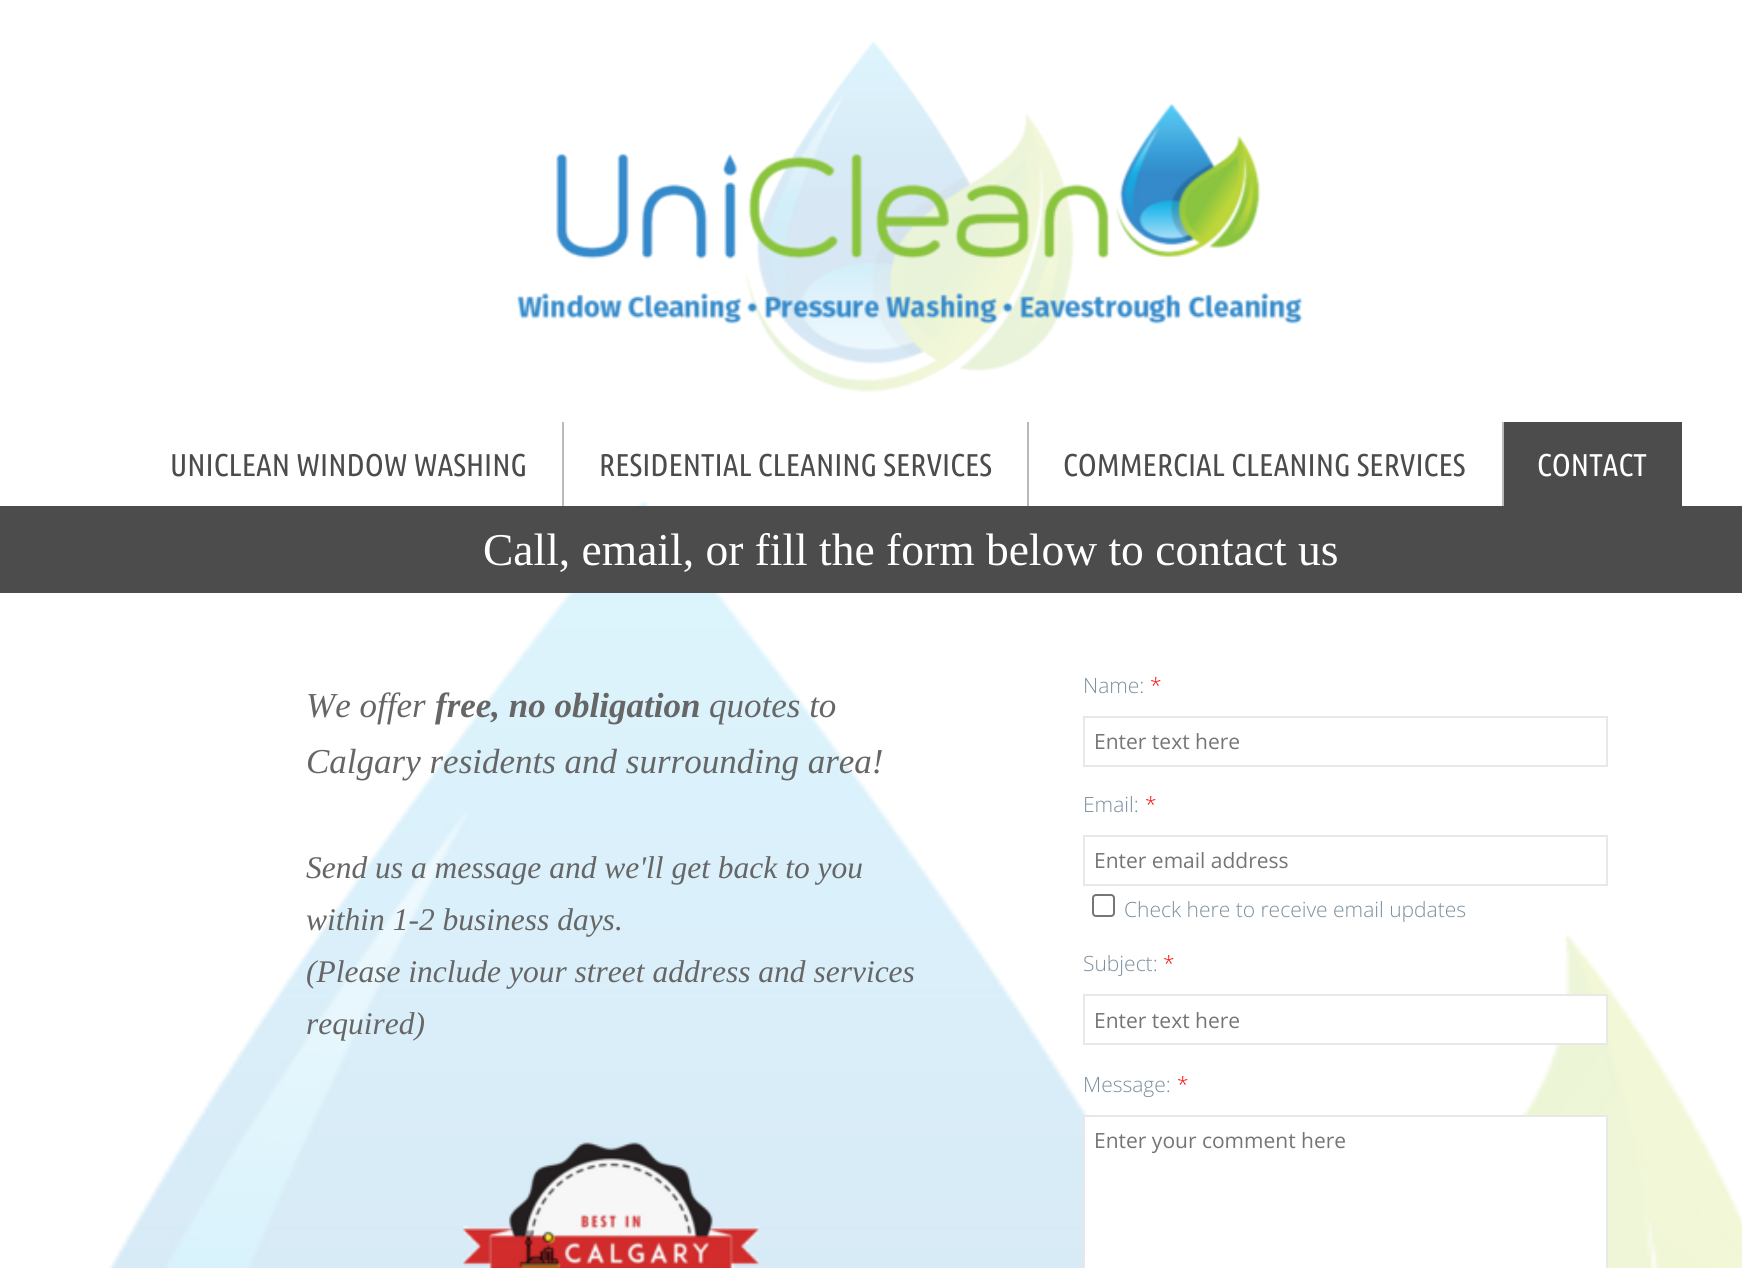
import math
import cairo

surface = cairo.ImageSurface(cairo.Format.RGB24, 1742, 1268)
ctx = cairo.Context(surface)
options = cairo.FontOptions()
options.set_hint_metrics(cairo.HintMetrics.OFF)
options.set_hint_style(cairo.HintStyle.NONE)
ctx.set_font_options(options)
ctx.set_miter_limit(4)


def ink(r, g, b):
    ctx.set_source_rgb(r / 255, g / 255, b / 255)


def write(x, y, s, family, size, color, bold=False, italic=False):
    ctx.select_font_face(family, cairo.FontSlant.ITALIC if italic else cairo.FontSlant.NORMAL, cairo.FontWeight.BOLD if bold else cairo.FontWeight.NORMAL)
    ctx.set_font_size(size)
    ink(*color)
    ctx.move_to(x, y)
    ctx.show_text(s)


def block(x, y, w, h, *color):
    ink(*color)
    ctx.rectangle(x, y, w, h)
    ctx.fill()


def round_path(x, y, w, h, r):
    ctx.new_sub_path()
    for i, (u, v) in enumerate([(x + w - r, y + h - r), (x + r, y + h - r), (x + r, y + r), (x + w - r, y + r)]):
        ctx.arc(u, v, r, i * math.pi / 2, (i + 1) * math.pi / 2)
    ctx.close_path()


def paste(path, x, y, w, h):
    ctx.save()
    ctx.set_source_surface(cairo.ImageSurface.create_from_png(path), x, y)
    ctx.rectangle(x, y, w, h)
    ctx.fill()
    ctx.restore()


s1 = dict(family="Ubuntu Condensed", size=31.5, color=(76, 76, 76))
s2 = dict(family="Ubuntu Condensed", size=31.5, color=(255, 255, 255))
s3 = dict(family="Liberation Serif", size=45.5, color=(255, 255, 255))
s4 = dict(family="Liberation Serif", size=35, color=(102, 102, 102), italic=True)
s5 = dict(family="Liberation Serif", size=35, color=(102, 102, 102), bold=True, italic=True)
s6 = dict(family="Liberation Serif", size=31.5, color=(102, 102, 102), italic=True)
s7 = dict(family="Open Sans Light", size=21, color=(123, 143, 158))
s8 = dict(family="Open Sans Light", size=21, color=(255, 0, 0))
s9 = dict(family="Open Sans", size=21, color=(117, 117, 117))

ink(255, 255, 255)
ctx.paint()
paste("pic1.png", 516, 41, 787, 351)
write(170, 476, "UNICLEAN WINDOW WASHING", **s1)
paste("pic2.png", 109, 501, 1633, 767)
block(562, 422, 2, 84, 185, 186, 190)
write(599, 476, "RESIDENTIAL CLEANING SERVICES", **s1)
block(1027, 422, 2, 84, 185, 186, 190)
write(1063, 476, "COMMERCIAL CLEANING SERVICES", **s1)
block(1504, 422, 178, 84, 76, 76, 76)
block(1502, 422, 2, 84, 185, 186, 190)
write(1537, 476, "CONTACT", **s2)
block(0, 506, 1742, 87, 76, 76, 76)
write(483, 565, "Call, email, or fill the form below to contact us", **s3)
write(306, 717, "We offer", **s4)
write(435, 717, "free, no obligation", **s5)
write(709, 717, "quotes to", **s4)
write(306, 773, "Calgary residents and surrounding area!", **s4)
write(306, 878, "Send us a message and we'll get back to you", **s6)
write(306, 930, "within 1-2 business days.", **s6)
write(306, 982, "(Please include your street address and services", **s6)
write(306, 1034, "required)", **s6)
write(1083, 693, "Name:", **s7)
write(1150, 693, "*", **s8)
ctx.rectangle(1084, 717, 523, 49)
ink(232, 232, 232)
ctx.stroke()
write(1094, 749, "Enter text here", **s9)
write(1083, 812, "Email:", **s7)
write(1145, 812, "*", **s8)
ctx.rectangle(1084, 836, 523, 49)
ink(232, 232, 232)
ctx.stroke()
write(1094, 868, "Enter email address", **s9)
round_path(1093, 895, 21, 21, 3)
ink(118, 118, 118)
ctx.stroke()
write(1124, 917, "Check here to receive email updates", **s7)
write(1083, 971, "Subject:", **s7)
write(1163, 971, "*", **s8)
block(1555, 996, 51, 47, 255, 255, 255)
ctx.rectangle(1084, 995, 523, 49)
ink(232, 232, 232)
ctx.stroke()
write(1094, 1028, "Enter text here", **s9)
write(1083, 1092, "Message:", **s7)
write(1177, 1092, "*", **s8)
ink(255, 255, 255)
ctx.rectangle(1084, 1116, 523, 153)
ctx.fill_preserve()
ink(232, 232, 232)
ctx.stroke()
write(1094, 1148, "Enter your comment here", **s9)
paste("pic3.png", 462, 1142, 298, 126)
surface.write_to_png("screenshot.png")
